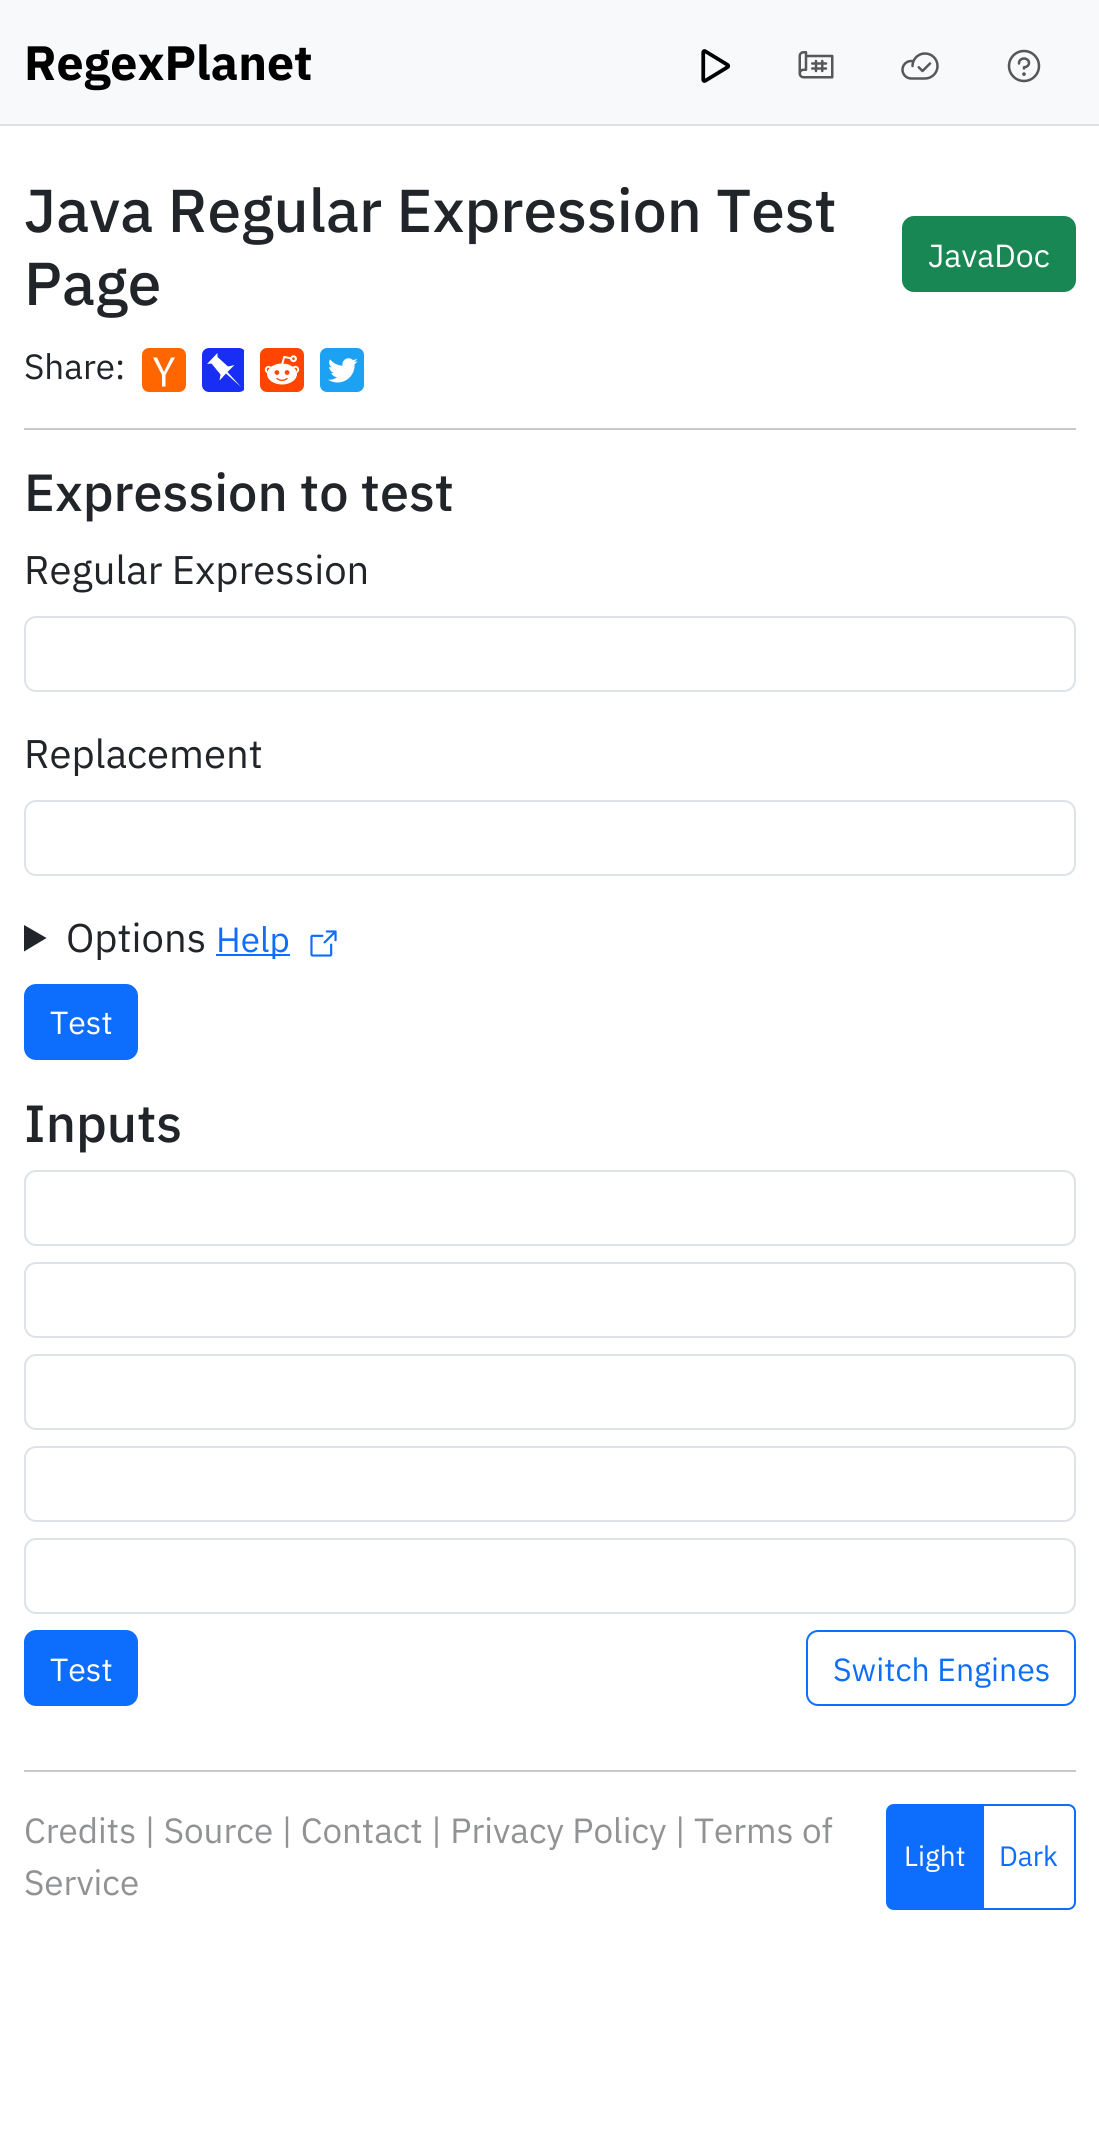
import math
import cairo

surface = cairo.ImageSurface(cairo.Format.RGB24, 1099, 2151)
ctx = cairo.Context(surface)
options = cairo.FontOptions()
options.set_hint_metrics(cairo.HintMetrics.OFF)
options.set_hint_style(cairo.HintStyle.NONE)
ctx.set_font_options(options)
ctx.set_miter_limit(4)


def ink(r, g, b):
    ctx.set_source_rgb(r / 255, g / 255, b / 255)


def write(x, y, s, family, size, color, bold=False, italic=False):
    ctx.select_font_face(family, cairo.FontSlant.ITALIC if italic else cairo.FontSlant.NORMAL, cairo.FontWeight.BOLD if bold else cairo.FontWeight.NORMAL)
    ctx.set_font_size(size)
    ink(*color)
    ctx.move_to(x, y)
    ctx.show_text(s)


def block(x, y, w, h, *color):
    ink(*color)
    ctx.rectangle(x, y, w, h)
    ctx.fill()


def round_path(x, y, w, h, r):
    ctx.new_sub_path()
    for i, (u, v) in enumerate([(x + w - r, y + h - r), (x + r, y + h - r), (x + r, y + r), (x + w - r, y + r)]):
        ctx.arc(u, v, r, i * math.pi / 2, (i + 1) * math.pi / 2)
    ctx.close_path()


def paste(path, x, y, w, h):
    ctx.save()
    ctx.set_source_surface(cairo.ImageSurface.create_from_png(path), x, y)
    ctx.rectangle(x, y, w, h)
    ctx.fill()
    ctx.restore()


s1 = dict(family="IBM Plex Sans", size=48.25, color=(0, 0, 0), bold=True)
s2 = dict(family="IBM Plex Sans Medium", size=60.5, color=(33, 37, 41))
s3 = dict(family="IBM Plex Sans", size=32, color=(255, 255, 255))
s4 = dict(family="IBM Plex Sans", size=35, color=(33, 37, 41))
s5 = dict(family="IBM Plex Sans Medium", size=52.25, color=(33, 37, 41))
s6 = dict(family="IBM Plex Sans", size=40, color=(33, 37, 41))
s7 = dict(family="IBM Plex Sans", size=35, color=(13, 110, 253))
s8 = dict(family="IBM Plex Sans", size=32, color=(13, 110, 253))
s9 = dict(family="IBM Plex Sans", size=35, color=(144, 146, 148))
s10 = dict(family="IBM Plex Sans", size=28, color=(255, 255, 255))
s11 = dict(family="IBM Plex Sans", size=28, color=(13, 110, 253))

ink(255, 255, 255)
ctx.paint()
block(0, 0, 1099, 124, 248, 249, 250)
block(0, 124, 1099, 2, 222, 226, 230)
write(24, 80, "RegexPlanet", **s1)
paste("pic1.png", 701, 49, 30, 34)
paste("pic2.png", 798, 51, 36, 28)
paste("pic3.png", 901, 52, 38, 28)
paste("pic4.png", 1007, 49, 34, 34)
write(24, 232, "Java Regular Expression Test", **s2)
write(24, 305, "Page", **s2)
ink(25, 135, 84)
round_path(903, 217, 172, 74, 11)
ctx.fill_preserve()
ctx.stroke()
write(928, 267, "JavaDoc", **s3)
write(24, 379, "Share:", **s4)
ink(255, 102, 0)
round_path(142, 348, 44, 44, 7)
ctx.fill()
ink(255, 255, 255)
ctx.new_path()
ctx.move_to(153, 357.5)
ctx.line_to(157, 357.5)
ctx.line_to(164, 372)
ctx.line_to(171, 357.5)
ctx.line_to(175, 357.5)
ctx.line_to(165.5, 375)
ctx.line_to(165.5, 386.5)
ctx.line_to(162, 386.5)
ctx.line_to(162, 375)
ctx.close_path()
ctx.fill()
ctx.save()
ctx.rectangle(202, 348, 42, 44)
ctx.clip()
ink(24, 46, 245)
round_path(202, 348, 44, 44, 7)
ctx.fill()
ctx.restore()
ctx.new_path()
ctx.move_to(217.5, 353)
ctx.line_to(207, 364)
ctx.line_to(211.5, 363.5)
ctx.line_to(220.5, 374.5)
ctx.line_to(219.5, 380.5)
ctx.line_to(226, 373.5)
ctx.line_to(241, 387)
ctx.line_to(227.5, 372)
ctx.line_to(234.5, 365)
ctx.line_to(228, 366.5)
ctx.line_to(217.5, 357)
ctx.fill()
paste("pic5.png", 260, 348, 44, 44)
paste("pic6.png", 320, 348, 44, 44)
block(24, 428, 1052, 2, 200, 201, 202)
write(24, 511, "Expression to test", **s5)
write(24, 584, "Regular Expression", **s6)
round_path(25, 617, 1050, 74, 11)
ink(222, 226, 230)
ctx.stroke()
write(24, 768, "Replacement", **s6)
round_path(25, 801, 1050, 74, 11)
ink(222, 226, 230)
ctx.stroke()
ink(33, 37, 41)
ctx.new_path()
ctx.move_to(24, 925)
ctx.line_to(46.5, 938)
ctx.line_to(24, 951.5)
ctx.close_path()
ctx.fill()
write(66, 952, "Options", **s6)
block(216, 954, 74, 2, 13, 110, 253)
write(216, 952, "Help", **s7)
paste("pic7.png", 310, 930, 27, 27)
round_path(25, 985, 112, 74, 11)
ctx.fill_preserve()
ctx.stroke()
write(50, 1034, "Test", **s3)
write(24, 1142, "Inputs", **s5)
round_path(25, 1171, 1050, 74, 11)
ink(222, 226, 230)
ctx.stroke()
round_path(25, 1263, 1050, 74, 11)
ctx.stroke()
round_path(25, 1355, 1050, 74, 11)
ctx.stroke()
round_path(25, 1447, 1050, 74, 11)
ctx.stroke()
round_path(25, 1539, 1050, 74, 11)
ctx.stroke()
ink(13, 110, 253)
round_path(25, 1631, 112, 74, 11)
ctx.fill_preserve()
ctx.stroke()
write(50, 1681, "Test", **s3)
round_path(807, 1631, 268, 74, 11)
ink(13, 110, 253)
ctx.stroke()
write(833, 1681, "Switch Engines", **s8)
block(24, 1770, 1052, 2, 200, 201, 202)
write(24, 1843, "Credits | Source | Contact | Privacy Policy | Terms of", **s9)
write(24, 1895, "Service", **s9)
ink(13, 110, 253)
ctx.new_path()
ctx.move_to(894, 1805)
ctx.line_to(983, 1805)
ctx.line_to(983, 1909)
ctx.line_to(894, 1909)
ctx.curve_to(890, 1909, 887, 1906, 887, 1902)
ctx.line_to(887, 1812)
ctx.curve_to(887, 1808, 890, 1805, 894, 1805)
ctx.close_path()
ctx.fill_preserve()
ctx.stroke()
write(904, 1866, "Light", **s10)
ctx.new_path()
ctx.move_to(983, 1805)
ctx.line_to(1068, 1805)
ctx.curve_to(1072, 1805, 1075, 1808, 1075, 1812)
ctx.line_to(1075, 1902)
ctx.curve_to(1075, 1906, 1072, 1909, 1068, 1909)
ctx.line_to(983, 1909)
ctx.close_path()
ink(13, 110, 253)
ctx.stroke()
write(999, 1866, "Dark", **s11)
surface.write_to_png("screenshot.png")
